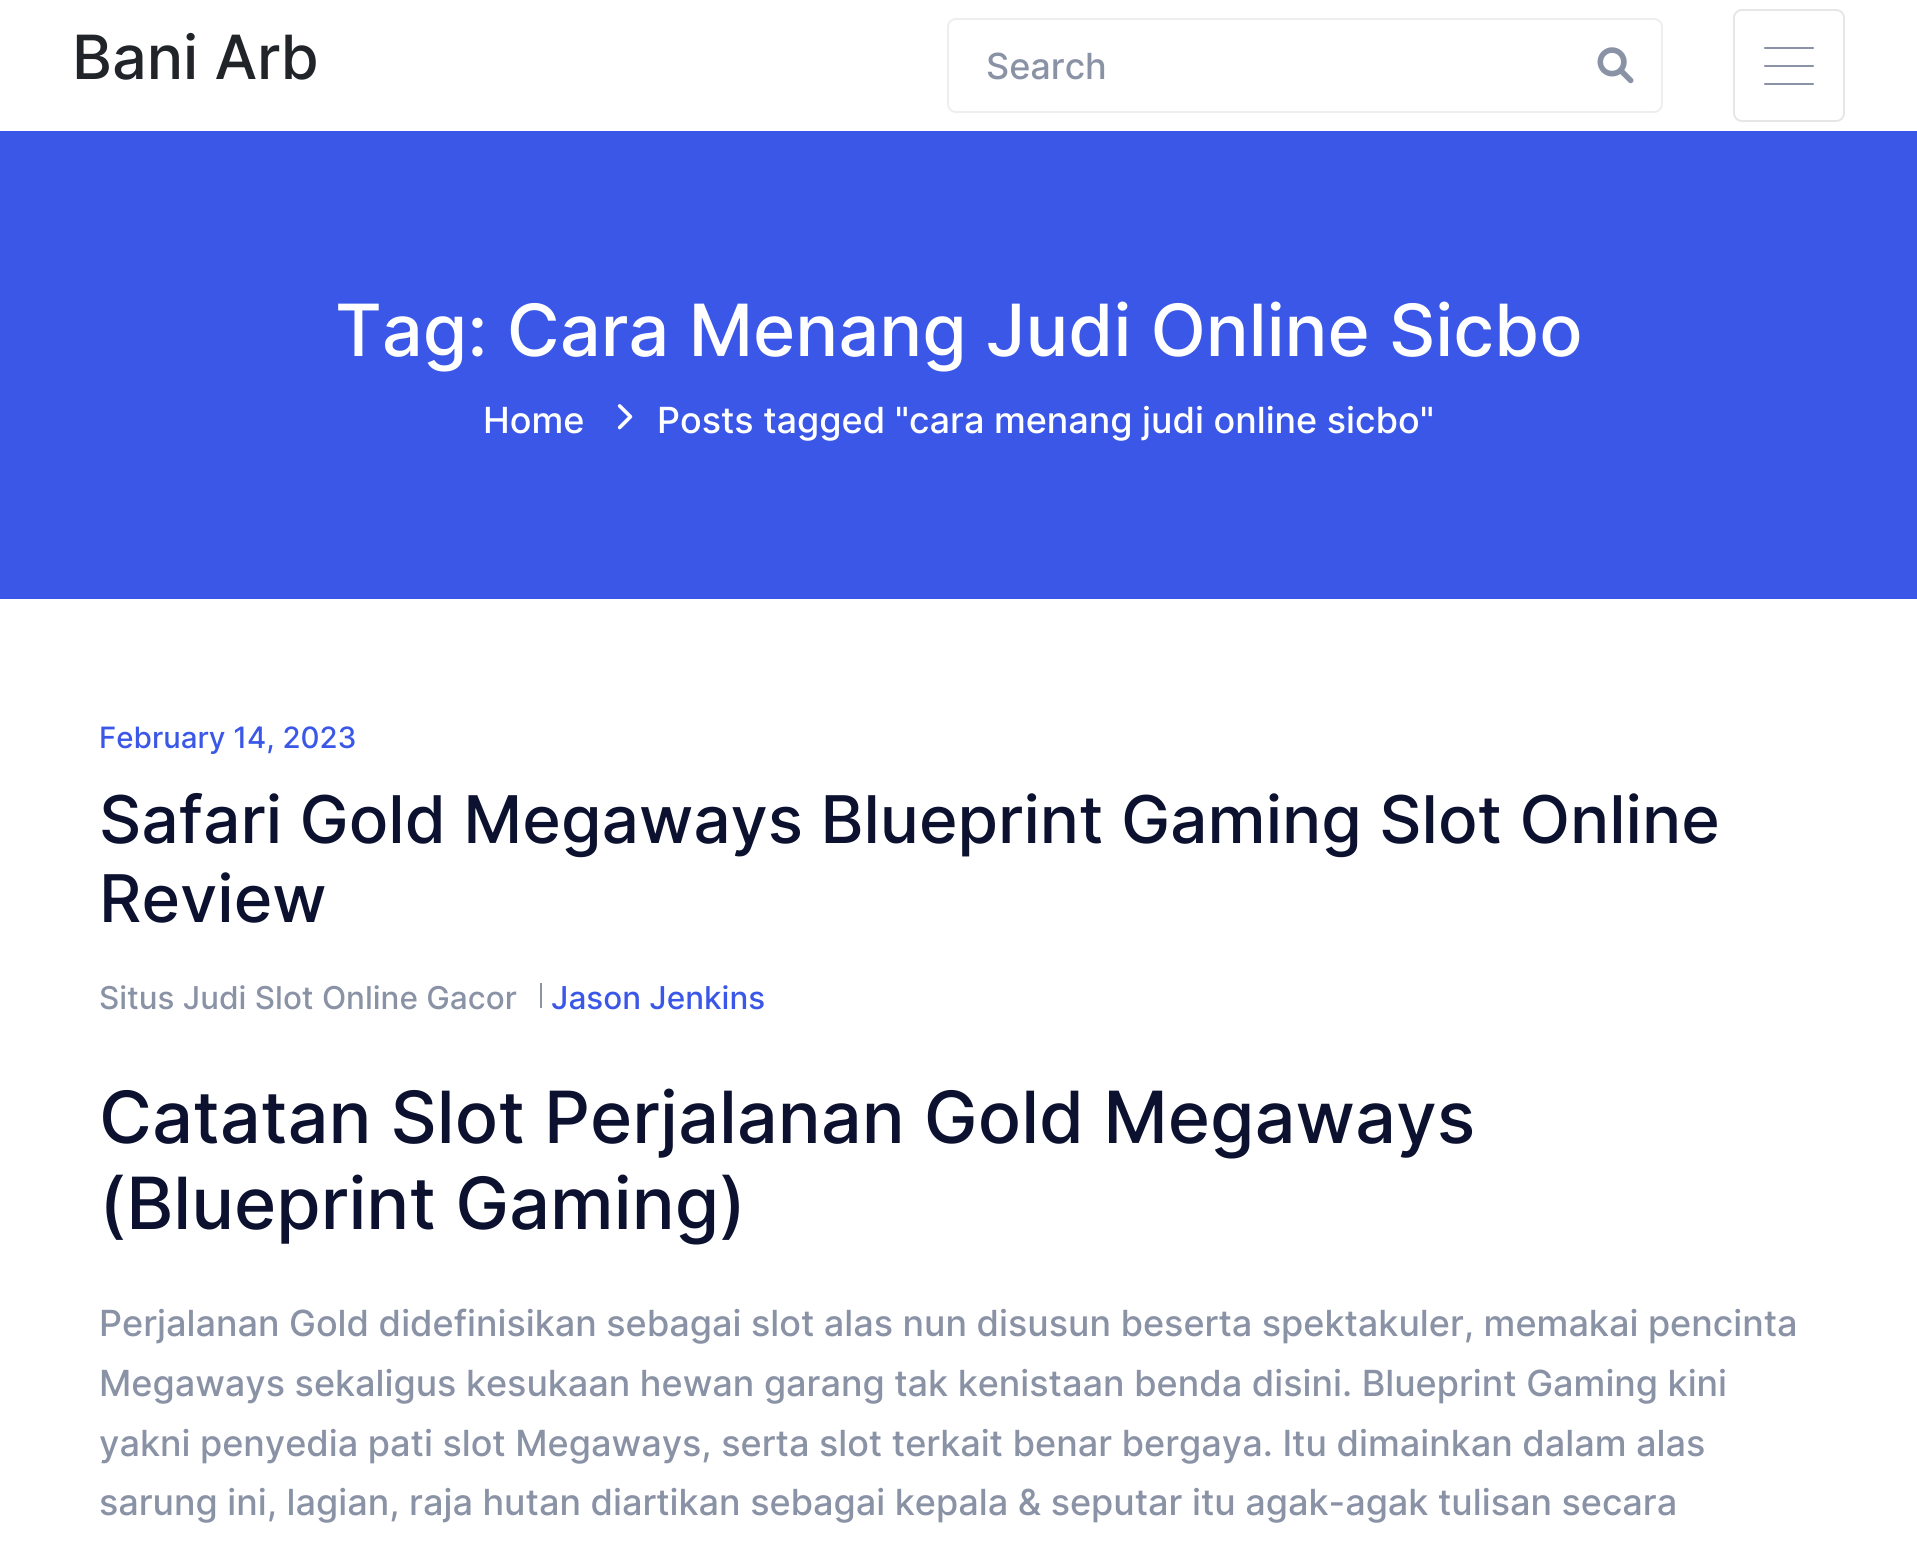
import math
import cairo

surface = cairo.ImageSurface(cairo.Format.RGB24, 1917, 1552)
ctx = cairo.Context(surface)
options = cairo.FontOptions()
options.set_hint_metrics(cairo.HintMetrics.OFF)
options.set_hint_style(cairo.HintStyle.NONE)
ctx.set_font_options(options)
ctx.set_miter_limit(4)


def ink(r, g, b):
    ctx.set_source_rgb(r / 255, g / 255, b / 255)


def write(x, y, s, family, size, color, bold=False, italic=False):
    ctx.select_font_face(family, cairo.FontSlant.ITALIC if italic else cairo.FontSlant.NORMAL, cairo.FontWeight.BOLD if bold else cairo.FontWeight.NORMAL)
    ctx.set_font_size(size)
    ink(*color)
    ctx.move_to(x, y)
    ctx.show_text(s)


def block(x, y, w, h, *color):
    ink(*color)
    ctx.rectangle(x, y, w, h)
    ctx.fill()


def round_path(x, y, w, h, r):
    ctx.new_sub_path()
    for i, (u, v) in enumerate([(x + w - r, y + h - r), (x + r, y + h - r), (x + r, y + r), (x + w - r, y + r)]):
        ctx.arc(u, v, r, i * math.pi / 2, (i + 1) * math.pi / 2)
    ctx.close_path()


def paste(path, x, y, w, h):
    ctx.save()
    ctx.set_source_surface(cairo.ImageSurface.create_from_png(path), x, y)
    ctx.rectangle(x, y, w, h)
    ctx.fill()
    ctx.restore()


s1 = dict(family="Inter Medium", size=61, color=(33, 37, 41))
s2 = dict(family="Inter Medium", size=36, color=(138, 146, 166))
s3 = dict(family="Inter Medium", size=72, color=(255, 255, 255))
s4 = dict(family="Inter Medium", size=36, color=(255, 255, 255))
s5 = dict(family="Inter Medium", size=29.4, color=(58, 87, 232))
s6 = dict(family="Inter Medium", size=65.75, color=(11, 17, 46))
s7 = dict(family="Inter Medium", size=31.5, color=(138, 146, 166))
s8 = dict(family="Inter Medium", size=31.5, color=(58, 87, 232))
s9 = dict(family="Inter Medium", size=72, color=(11, 17, 46))

ink(255, 255, 255)
ctx.paint()
write(72, 79, "Bani Arb", **s1)
round_path(948, 19, 714, 93, 8)
ink(238, 238, 238)
ctx.stroke()
write(986, 79, "Search", **s2)
paste("pic1.png", 1597, 47, 37, 37)
round_path(1734, 10, 110, 111, 8)
ink(230, 230, 230)
ctx.stroke()
ink(138, 146, 166)
round_path(1764, 47, 50, 2, 1)
ctx.fill()
round_path(1764, 65, 50, 2, 1)
ctx.fill()
round_path(1764, 83, 50, 2, 1)
ctx.fill()
block(0, 131, 1917, 468, 58, 87, 232)
write(335, 356, "Tag: Cara Menang Judi Online Sicbo", **s3)
write(483, 433, "Home", **s4)
paste("pic2.png", 617, 404, 16, 26)
write(657, 433, "Posts tagged \"cara menang judi online sicbo\"", **s4)
write(99, 748, "February 14, 2023", **s5)
write(99, 843, "Safari Gold Megaways Blueprint Gaming Slot Online", **s6)
write(99, 922, "Review", **s6)
write(99, 1009, "Situs Judi Slot Online Gacor", **s7)
block(540, 983, 2, 25, 138, 146, 166)
write(551, 1009, "Jason Jenkins", **s8)
write(99, 1143, "Catatan Slot Perjalanan Gold Megaways", **s9)
write(99, 1229, "(Blueprint Gaming)", **s9)
write(99, 1336, "Perjalanan Gold didefinisikan sebagai slot alas nun disusun beserta spektakuler, memakai pencinta", **s2)
write(99, 1396, "Megaways sekaligus kesukaan hewan garang tak kenistaan benda disini. Blueprint Gaming kini", **s2)
write(99, 1456, "yakni penyedia pati slot Megaways, serta slot terkait benar bergaya. Itu dimainkan dalam alas", **s2)
write(99, 1515, "sarung ini, lagian, raja hutan diartikan sebagai kepala & seputar itu agak-agak tulisan secara", **s2)
surface.write_to_png("screenshot.png")
